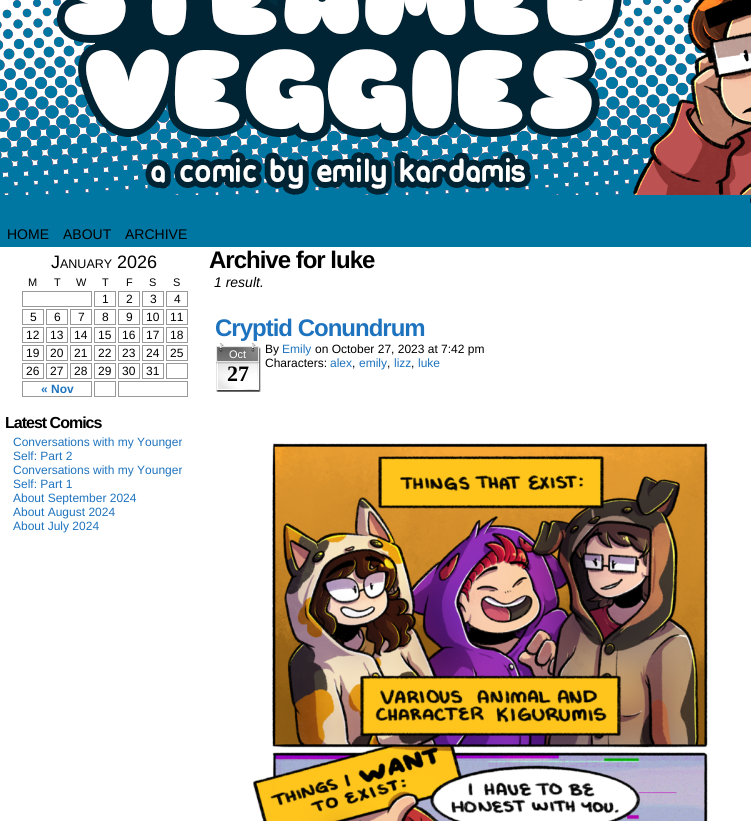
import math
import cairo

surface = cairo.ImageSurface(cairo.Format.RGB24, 751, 821)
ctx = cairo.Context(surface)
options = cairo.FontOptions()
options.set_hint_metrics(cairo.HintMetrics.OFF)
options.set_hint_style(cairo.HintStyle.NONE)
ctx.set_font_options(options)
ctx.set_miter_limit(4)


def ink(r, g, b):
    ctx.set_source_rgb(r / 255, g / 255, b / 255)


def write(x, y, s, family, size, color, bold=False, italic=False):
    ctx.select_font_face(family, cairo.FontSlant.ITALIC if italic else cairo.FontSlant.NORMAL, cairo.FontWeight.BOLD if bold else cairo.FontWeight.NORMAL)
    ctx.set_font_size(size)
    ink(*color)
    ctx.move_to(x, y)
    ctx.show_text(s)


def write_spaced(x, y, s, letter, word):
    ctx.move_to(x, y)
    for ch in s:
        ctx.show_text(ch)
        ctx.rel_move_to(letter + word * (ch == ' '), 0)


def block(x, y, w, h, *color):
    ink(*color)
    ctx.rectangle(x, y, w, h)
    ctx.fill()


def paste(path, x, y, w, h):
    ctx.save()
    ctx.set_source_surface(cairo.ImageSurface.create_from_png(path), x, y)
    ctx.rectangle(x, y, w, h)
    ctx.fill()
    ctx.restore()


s1 = dict(family="Liberation Sans", size=14, color=(0, 0, 0))
s2 = dict(family="Liberation Sans", size=18, color=(0, 0, 0))
s3 = dict(family="Liberation Sans", size=12.5, color=(0, 0, 0))
s4 = dict(family="Liberation Sans", size=11, color=(0, 0, 0))
s5 = dict(family="Liberation Sans", size=12, color=(0, 0, 0))
s6 = dict(family="Liberation Sans", size=12, color=(30, 115, 190), bold=True)
s7 = dict(family="Liberation Sans", size=12, color=(30, 115, 190))
s8 = dict(family="Liberation Sans", size=14, color=(0, 0, 0), italic=True)
s9 = dict(family="Liberation Sans", size=11, color=(255, 255, 255))
s10 = dict(family="Liberation Serif", size=22, color=(0, 0, 0), bold=True)

ink(255, 255, 255)
ctx.paint()
paste("pic1.png", 0, 0, 751, 222)
block(0, 222, 751, 25, 0, 118, 163)
write(7, 239, "HOME", **s1)
write(63, 239, "ABOUT", **s1)
write(125, 239, "ARCHIVE", **s1)
write(51, 268, "J", **s2)
write(60, 268, "ANUARY", **s3)
write(117, 268, "2026", **s2)
write(28, 286, "M", **s4)
write(54, 286, "T", **s4)
write(76, 286, "W", **s4)
write(102, 286, "T", **s4)
write(126, 286, "F", **s4)
write(149, 286, "S", **s4)
write(173, 286, "S", **s4)
ctx.rectangle(22.5, 291.5, 69, 15)
ink(153, 153, 153)
ctx.set_line_width(1)
ctx.stroke()
ctx.rectangle(94.5, 291.5, 21, 15)
ctx.stroke()
write(102, 303, "1", **s5)
ctx.rectangle(118.5, 291.5, 21, 15)
ink(153, 153, 153)
ctx.stroke()
write(126, 303, "2", **s5)
ctx.rectangle(142.5, 291.5, 21, 15)
ink(153, 153, 153)
ctx.stroke()
write(150, 303, "3", **s5)
ctx.rectangle(166.5, 291.5, 21, 15)
ink(153, 153, 153)
ctx.stroke()
write(174, 303, "4", **s5)
ctx.rectangle(22.5, 309.5, 21, 15)
ink(153, 153, 153)
ctx.stroke()
write(30, 321, "5", **s5)
ctx.rectangle(46.5, 309.5, 21, 15)
ink(153, 153, 153)
ctx.stroke()
write(54, 321, "6", **s5)
ctx.rectangle(70.5, 309.5, 21, 15)
ink(153, 153, 153)
ctx.stroke()
write(78, 321, "7", **s5)
ctx.rectangle(94.5, 309.5, 21, 15)
ink(153, 153, 153)
ctx.stroke()
write(102, 321, "8", **s5)
ctx.rectangle(118.5, 309.5, 21, 15)
ink(153, 153, 153)
ctx.stroke()
write(126, 321, "9", **s5)
ctx.rectangle(142.5, 309.5, 21, 15)
ink(153, 153, 153)
ctx.stroke()
write(146, 321, "10", **s5)
ctx.rectangle(166.5, 309.5, 21, 15)
ink(153, 153, 153)
ctx.stroke()
write(170, 321, "11", **s5)
ctx.rectangle(22.5, 327.5, 21, 15)
ink(153, 153, 153)
ctx.stroke()
write(26, 339, "12", **s5)
ctx.rectangle(46.5, 327.5, 21, 15)
ink(153, 153, 153)
ctx.stroke()
write(50, 339, "13", **s5)
ctx.rectangle(70.5, 327.5, 21, 15)
ink(153, 153, 153)
ctx.stroke()
write(74, 339, "14", **s5)
ctx.rectangle(94.5, 327.5, 21, 15)
ink(153, 153, 153)
ctx.stroke()
write(98, 339, "15", **s5)
ctx.rectangle(118.5, 327.5, 21, 15)
ink(153, 153, 153)
ctx.stroke()
write(122, 339, "16", **s5)
ctx.rectangle(142.5, 327.5, 21, 15)
ink(153, 153, 153)
ctx.stroke()
write(146, 339, "17", **s5)
ctx.rectangle(166.5, 327.5, 21, 15)
ink(153, 153, 153)
ctx.stroke()
write(170, 339, "18", **s5)
ctx.rectangle(22.5, 345.5, 21, 15)
ink(153, 153, 153)
ctx.stroke()
write(26, 357, "19", **s5)
ctx.rectangle(46.5, 345.5, 21, 15)
ink(153, 153, 153)
ctx.stroke()
write(50, 357, "20", **s5)
ctx.rectangle(70.5, 345.5, 21, 15)
ink(153, 153, 153)
ctx.stroke()
write(74, 357, "21", **s5)
ctx.rectangle(94.5, 345.5, 21, 15)
ink(153, 153, 153)
ctx.stroke()
write(98, 357, "22", **s5)
ctx.rectangle(118.5, 345.5, 21, 15)
ink(153, 153, 153)
ctx.stroke()
write(122, 357, "23", **s5)
ctx.rectangle(142.5, 345.5, 21, 15)
ink(153, 153, 153)
ctx.stroke()
write(146, 357, "24", **s5)
ctx.rectangle(166.5, 345.5, 21, 15)
ink(153, 153, 153)
ctx.stroke()
write(170, 357, "25", **s5)
ctx.rectangle(22.5, 363.5, 21, 15)
ink(153, 153, 153)
ctx.stroke()
write(26, 375, "26", **s5)
ctx.rectangle(46.5, 363.5, 21, 15)
ink(153, 153, 153)
ctx.stroke()
write(50, 375, "27", **s5)
ctx.rectangle(70.5, 363.5, 21, 15)
ink(153, 153, 153)
ctx.stroke()
write(74, 375, "28", **s5)
ctx.rectangle(94.5, 363.5, 21, 15)
ink(153, 153, 153)
ctx.stroke()
write(98, 375, "29", **s5)
ctx.rectangle(118.5, 363.5, 21, 15)
ink(153, 153, 153)
ctx.stroke()
write(122, 375, "30", **s5)
ctx.rectangle(142.5, 363.5, 21, 15)
ink(153, 153, 153)
ctx.stroke()
write(146, 375, "31", **s5)
ctx.rectangle(166.5, 363.5, 21, 15)
ink(153, 153, 153)
ctx.stroke()
ctx.rectangle(22.5, 381.5, 69, 15)
ctx.stroke()
write(41, 393, "« Nov", **s6)
ctx.rectangle(94.5, 381.5, 21, 15)
ink(153, 153, 153)
ctx.stroke()
ctx.rectangle(118.5, 381.5, 69, 15)
ctx.stroke()
ctx.set_font_size(16)
ink(0, 0, 0)
write_spaced(5, 428, "Latest Comics", -1, 0)
write(13, 446, "Conversations with my Younger", **s7)
write(13, 460, "Self: Part 2", **s7)
write(13, 474, "Conversations with my Younger", **s7)
write(13, 488, "Self: Part 1", **s7)
write(13, 502, "About September 2024", **s7)
write(13, 516, "About August 2024", **s7)
write(13, 530, "About July 2024", **s7)
ctx.select_font_face("Liberation Sans", cairo.FontSlant.NORMAL, cairo.FontWeight.BOLD)
ctx.set_font_size(24)
ink(0, 0, 0)
write_spaced(209, 268, "Archive for luke", -1, 0)
write(214, 287, "1 result.", **s8)
ctx.select_font_face("Liberation Sans", cairo.FontSlant.NORMAL, cairo.FontWeight.BOLD)
ctx.set_font_size(24)
ink(30, 115, 190)
write_spaced(215, 336, "Cryptid Conundrum", -1, 0)
paste("pic2.png", 216, 343, 45, 49)
write(229, 358, "Oct", **s9)
write(227, 381, "27", **s10)
write(265, 353, "By", **s5)
write(282, 353, "Emily", **s7)
write(315, 353, "on October 27, 2023 at 7:42 pm", **s5)
write(265, 367, "Characters:", **s5)
write(330, 367, "alex", **s7)
write(352, 367, ",", **s5)
write(359, 367, "emily", **s7)
write(387, 367, ",", **s5)
write(394, 367, "lizz", **s7)
write(411, 367, ",", **s5)
write(418, 367, "luke", **s7)
paste("pic3.png", 252, 443, 456, 378)
surface.write_to_png("screenshot.png")
